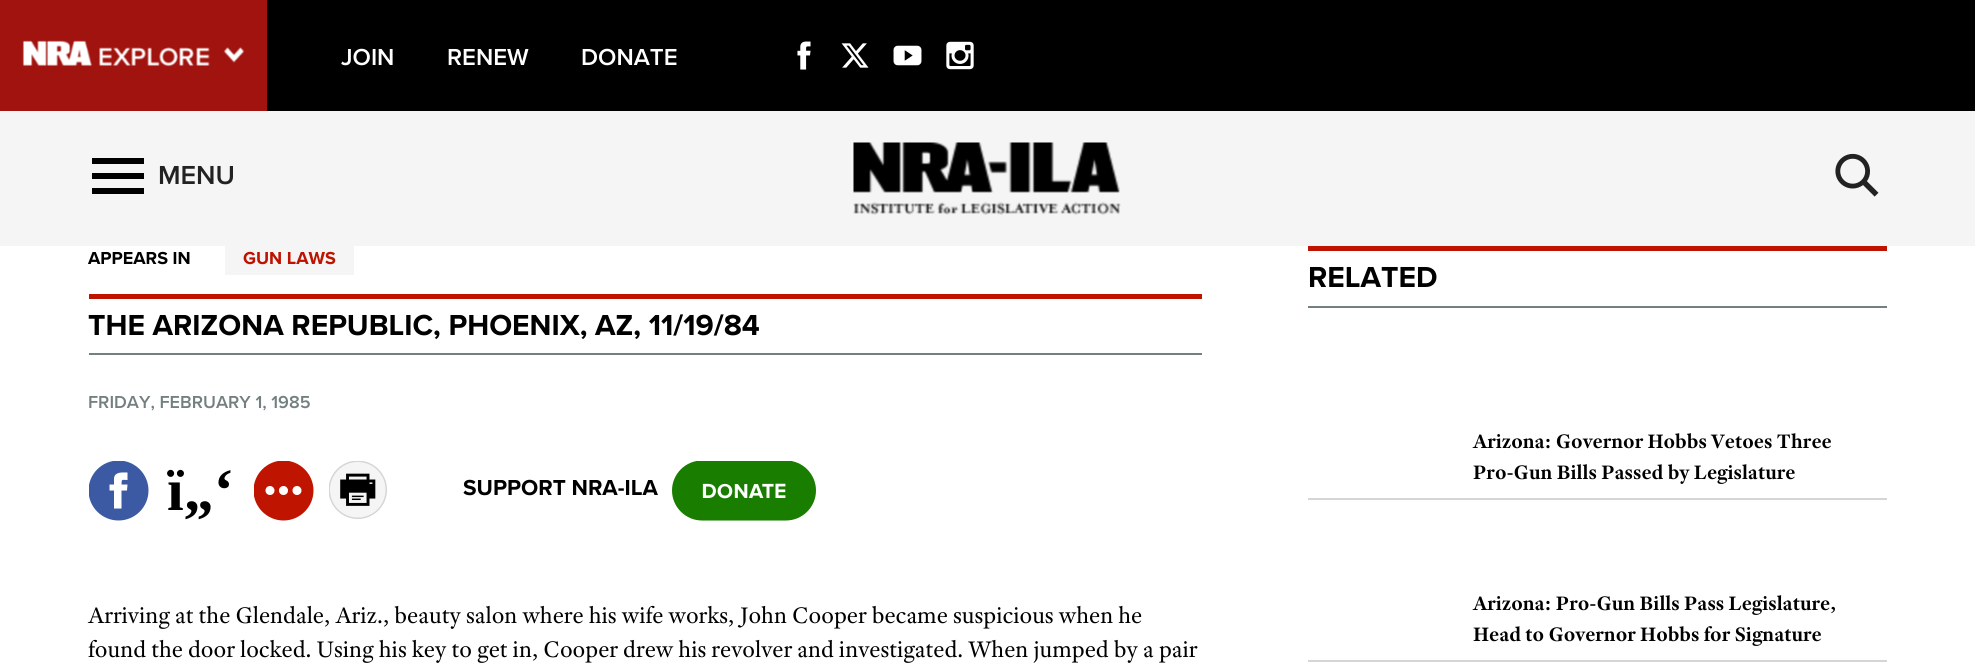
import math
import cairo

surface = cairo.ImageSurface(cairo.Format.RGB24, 1975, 663)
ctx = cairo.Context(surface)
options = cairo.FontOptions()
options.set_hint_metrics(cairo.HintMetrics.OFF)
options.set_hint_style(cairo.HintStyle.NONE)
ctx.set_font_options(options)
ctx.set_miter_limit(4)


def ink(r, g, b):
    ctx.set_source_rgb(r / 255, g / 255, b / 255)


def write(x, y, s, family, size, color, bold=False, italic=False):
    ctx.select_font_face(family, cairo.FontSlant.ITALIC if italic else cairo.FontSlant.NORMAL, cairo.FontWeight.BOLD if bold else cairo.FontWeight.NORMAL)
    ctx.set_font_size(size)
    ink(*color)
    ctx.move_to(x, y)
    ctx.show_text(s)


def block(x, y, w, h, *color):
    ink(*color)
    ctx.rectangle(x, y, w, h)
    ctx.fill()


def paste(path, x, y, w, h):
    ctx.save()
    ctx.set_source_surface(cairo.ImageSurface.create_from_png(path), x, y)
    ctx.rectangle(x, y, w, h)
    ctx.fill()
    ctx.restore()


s1 = dict(family="Proxima Nova SemiBold", size=24, color=(255, 255, 255))
s2 = dict(family="Proxima Nova SemiBold", size=27, color=(34, 34, 34))
s3 = dict(family="Proxima Nova", size=18, color=(0, 0, 0), bold=True)
s4 = dict(family="Proxima Nova", size=18, color=(189, 19, 0), bold=True)
s5 = dict(family="Proxima Nova", size=30, color=(0, 0, 0), bold=True)
s6 = dict(family="Proxima Nova SemiBold", size=18, color=(115, 127, 128))
s7 = dict(family="Liberation Serif", size=60, color=(0, 0, 0), bold=True)
s8 = dict(family="Proxima Nova", size=22.5, color=(0, 0, 0), bold=True)
s9 = dict(family="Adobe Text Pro", size=24, color=(0, 0, 0))
s10 = dict(family="Adobe Text Pro", size=21, color=(0, 0, 0), bold=True)

ink(255, 255, 255)
ctx.paint()
block(267, 0, 1708, 111, 0, 0, 0)
block(0, 0, 267, 111, 161, 19, 14)
paste("pic1.png", 22, 40, 223, 27)
write(341, 65, "JOIN", **s1)
write(447, 65, "RENEW", **s1)
write(581, 65, "DONATE", **s1)
paste("pic2.png", 797, 41, 14, 29)
paste("pic3.png", 841, 43, 28, 25)
paste("pic4.png", 893, 45, 29, 21)
paste("pic5.png", 946, 41, 28, 29)
block(0, 111, 1975, 135, 245, 245, 245)
block(92, 173, 52, 6, 0, 0, 0)
block(92, 158, 52, 6, 0, 0, 0)
block(92, 188, 52, 6, 0, 0, 0)
write(158, 184, "MENU", **s2)
paste("pic6.png", 853, 142, 268, 73)
paste("pic7.png", 1835, 153, 44, 44)
write(88, 264, "APPEARS IN", **s3)
block(225, 246, 129, 29, 245, 245, 245)
write(243, 264, "GUN LAWS", **s4)
block(89, 294, 1113, 5, 189, 19, 0)
block(89, 353, 1113, 2, 115, 127, 128)
write(88, 335, "THE ARIZONA REPUBLIC, PHOENIX, AZ, 11/19/84", **s5)
write(88, 408, "FRIDAY, FEBRUARY 1, 1985", **s6)
ctx.save()
ctx.rectangle(89, 461, 60, 60)
ctx.clip()
ink(59, 90, 163)
ctx.arc(118.5, 490.5, 30, 0, 2 * math.pi)
ctx.fill()
ctx.restore()
ink(255, 255, 255)
ctx.new_path()
ctx.move_to(114, 484.5)
ctx.line_to(109.5, 484.5)
ctx.line_to(109.5, 490.5)
ctx.line_to(114, 490.5)
ctx.line_to(114, 508.5)
ctx.line_to(121.5, 508.5)
ctx.line_to(121.5, 490.5)
ctx.line_to(127, 490.5)
ctx.line_to(127.5, 484.5)
ctx.line_to(121.5, 484.5)
ctx.curve_to(121.5, 478.5, 122, 480, 127.5, 480)
ctx.line_to(127.5, 472.5)
ctx.curve_to(122.5, 472.5, 115, 471.5, 114, 478)
ctx.close_path()
ctx.fill()
write(167, 510, "ï„‘", **s7)
paste("pic8.png", 254, 461, 60, 60)
paste("pic9.png", 329, 461, 58, 58)
write(463, 495, "SUPPORT NRA-ILA", **s8)
paste("pic10.png", 672, 461, 144, 60)
write(88, 623, "Arriving at the Glendale, Ariz., beauty salon where his wife works, John Cooper became suspicious when he", **s9)
write(88, 657, "found the door locked. Using his key to get in, Cooper drew his revolver and investigated. When jumped by a pair", **s9)
block(1308, 246, 579, 5, 189, 19, 0)
block(1308, 306, 579, 2, 115, 127, 128)
write(1308, 287, "RELATED", **s5)
block(1308, 498, 579, 2, 213, 213, 213)
write(1473, 448, "Arizona: Governor Hobbs Vetoes Three", **s10)
write(1473, 479, "Pro-Gun Bills Passed by Legislature", **s10)
block(1308, 660, 579, 2, 213, 213, 213)
write(1473, 610, "Arizona: Pro-Gun Bills Pass Legislature,", **s10)
write(1473, 641, "Head to Governor Hobbs for Signature", **s10)
surface.write_to_png("screenshot.png")
